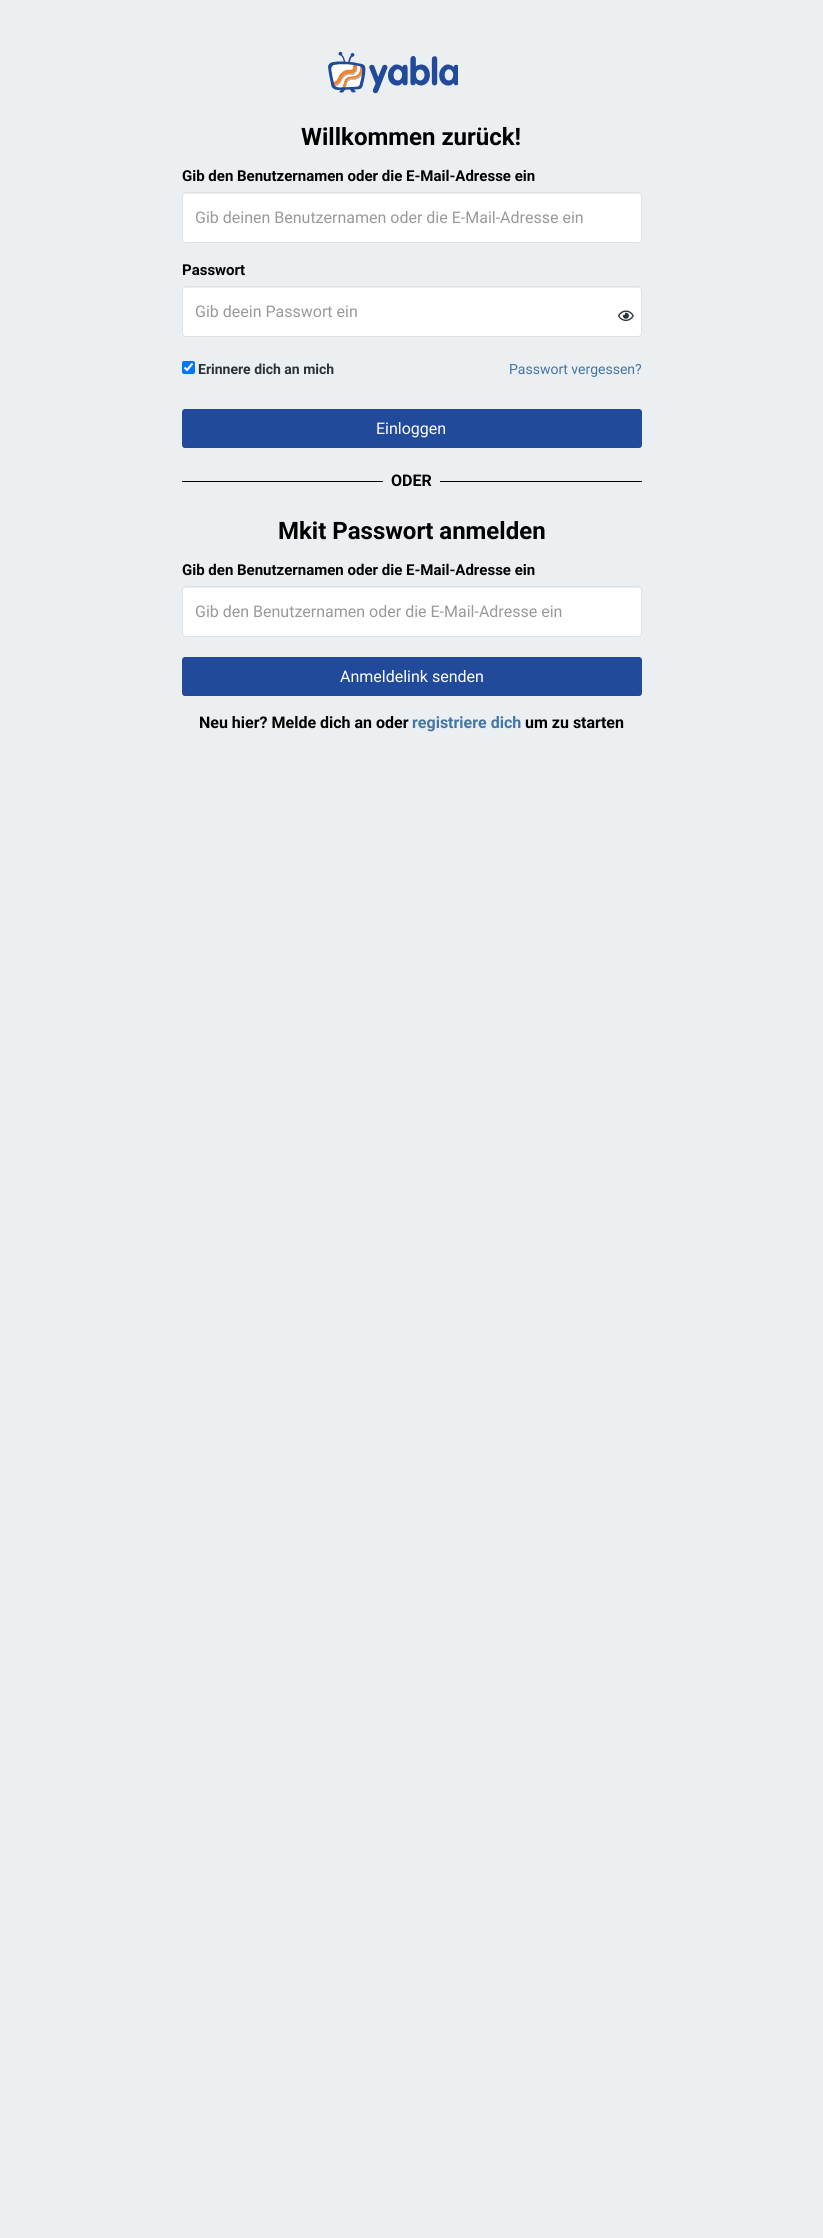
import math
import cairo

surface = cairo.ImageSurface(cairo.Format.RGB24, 823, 2238)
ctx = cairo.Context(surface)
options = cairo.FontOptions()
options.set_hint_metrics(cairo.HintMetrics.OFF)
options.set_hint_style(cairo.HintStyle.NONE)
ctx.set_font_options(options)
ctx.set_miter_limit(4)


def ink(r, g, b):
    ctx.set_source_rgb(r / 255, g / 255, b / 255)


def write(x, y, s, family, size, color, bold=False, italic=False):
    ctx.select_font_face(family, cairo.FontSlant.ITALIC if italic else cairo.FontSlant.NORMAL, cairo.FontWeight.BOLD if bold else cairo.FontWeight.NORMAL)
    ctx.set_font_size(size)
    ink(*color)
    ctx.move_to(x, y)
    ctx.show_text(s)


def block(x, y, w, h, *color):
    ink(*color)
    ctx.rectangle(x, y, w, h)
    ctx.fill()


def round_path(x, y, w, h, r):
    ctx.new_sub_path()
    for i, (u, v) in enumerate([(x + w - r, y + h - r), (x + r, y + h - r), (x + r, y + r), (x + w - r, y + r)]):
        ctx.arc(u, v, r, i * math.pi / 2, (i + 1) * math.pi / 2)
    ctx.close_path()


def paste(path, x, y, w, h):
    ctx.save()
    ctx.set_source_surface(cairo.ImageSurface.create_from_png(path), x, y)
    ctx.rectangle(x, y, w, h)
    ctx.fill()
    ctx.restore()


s1 = dict(family="Roboto", size=24, color=(0, 0, 0), bold=True)
s2 = dict(family="Roboto", size=15, color=(0, 0, 0), bold=True)
s3 = dict(family="Roboto", size=16, color=(153, 153, 153))
s4 = dict(family="Roboto", size=14, color=(42, 50, 53), bold=True)
s5 = dict(family="Roboto", size=14, color=(65, 118, 166))
s6 = dict(family="Roboto", size=16, color=(255, 255, 255))
s7 = dict(family="Roboto", size=16, color=(0, 0, 0), bold=True)
s8 = dict(family="Roboto", size=16, color=(65, 118, 166), bold=True)

ink(236, 239, 241)
ctx.paint()
paste("pic1.png", 328, 51, 130, 43)
write(301, 145, "Willkommen zurück!", **s1)
write(182, 181, "Gib den Benutzernamen oder die E-Mail-Adresse ein", **s2)
ink(255, 255, 255)
round_path(182, 192, 460, 51, 4)
ctx.fill()
ink(236, 236, 236)
ctx.new_path()
ctx.move_to(186, 194)
ctx.line_to(638, 194)
ctx.curve_to(640, 194, 641, 195, 641, 197)
ctx.curve_to(641, 195, 641, 193, 639, 193)
ctx.line_to(185, 193)
ctx.line_to(183, 195)
ctx.line_to(183, 197)
ctx.curve_to(183, 195, 184, 194, 186, 194)
ctx.close_path()
ctx.fill()
round_path(182.5, 192.5, 459, 50, 3.5)
ink(222, 226, 228)
ctx.set_line_width(1)
ctx.stroke()
write(195, 223, "Gib deinen Benutzernamen oder die E-Mail-Adresse ein", **s3)
write(182, 275, "Passwort", **s2)
ink(255, 255, 255)
round_path(182, 286, 460, 51, 4)
ctx.fill()
ink(236, 236, 236)
ctx.new_path()
ctx.move_to(186, 288)
ctx.line_to(638, 288)
ctx.curve_to(640, 288, 641, 289, 641, 291)
ctx.curve_to(641, 289, 641, 287, 639, 287)
ctx.line_to(185, 287)
ctx.line_to(183, 289)
ctx.line_to(183, 291)
ctx.curve_to(183, 289, 184, 288, 186, 288)
ctx.close_path()
ctx.fill()
round_path(182.5, 286.5, 459, 50, 3.5)
ink(222, 226, 228)
ctx.stroke()
write(195, 317, "Gib deein Passwort ein", **s3)
paste("pic2.png", 618, 310, 16, 11)
ink(0, 117, 255)
round_path(182, 361, 13, 13, 2)
ctx.fill()
ctx.new_path()
ctx.move_to(184.5, 367.5)
ctx.line_to(187, 370)
ctx.line_to(192.5, 363.5)
ink(255, 255, 255)
ctx.set_line_width(2.1)
ctx.stroke()
write(198, 374, "Erinnere dich an mich", **s4)
write(509, 374, "Passwort vergessen?", **s5)
ink(34, 74, 154)
round_path(182, 409, 460, 39, 3)
ctx.fill()
write(376, 434, "Einloggen", **s6)
block(182, 481, 201, 1, 0, 0, 0)
write(391, 486, "ODER", **s7)
block(440, 481, 202, 1, 0, 0, 0)
write(278, 539, "Mkit Passwort anmelden", **s1)
write(182, 575, "Gib den Benutzernamen oder die E-Mail-Adresse ein", **s2)
ink(255, 255, 255)
round_path(182, 586, 460, 51, 4)
ctx.fill()
ink(236, 236, 236)
ctx.new_path()
ctx.move_to(186, 588)
ctx.line_to(638, 588)
ctx.curve_to(640, 588, 641, 589, 641, 591)
ctx.curve_to(641, 589, 641, 587, 639, 587)
ctx.line_to(185, 587)
ctx.line_to(183, 589)
ctx.line_to(183, 591)
ctx.curve_to(183, 589, 184, 588, 186, 588)
ctx.close_path()
ctx.fill()
round_path(182.5, 586.5, 459, 50, 3.5)
ink(222, 226, 228)
ctx.set_line_width(1)
ctx.stroke()
write(195, 617, "Gib den Benutzernamen oder die E-Mail-Adresse ein", **s3)
ink(34, 74, 154)
round_path(182, 657, 460, 39, 3)
ctx.fill()
write(340, 682, "Anmeldelink senden", **s6)
write(199, 728, "Neu hier? Melde dich an oder", **s7)
write(412, 728, "registriere dich", **s8)
write(525, 728, "um zu starten", **s7)
surface.write_to_png("screenshot.png")
